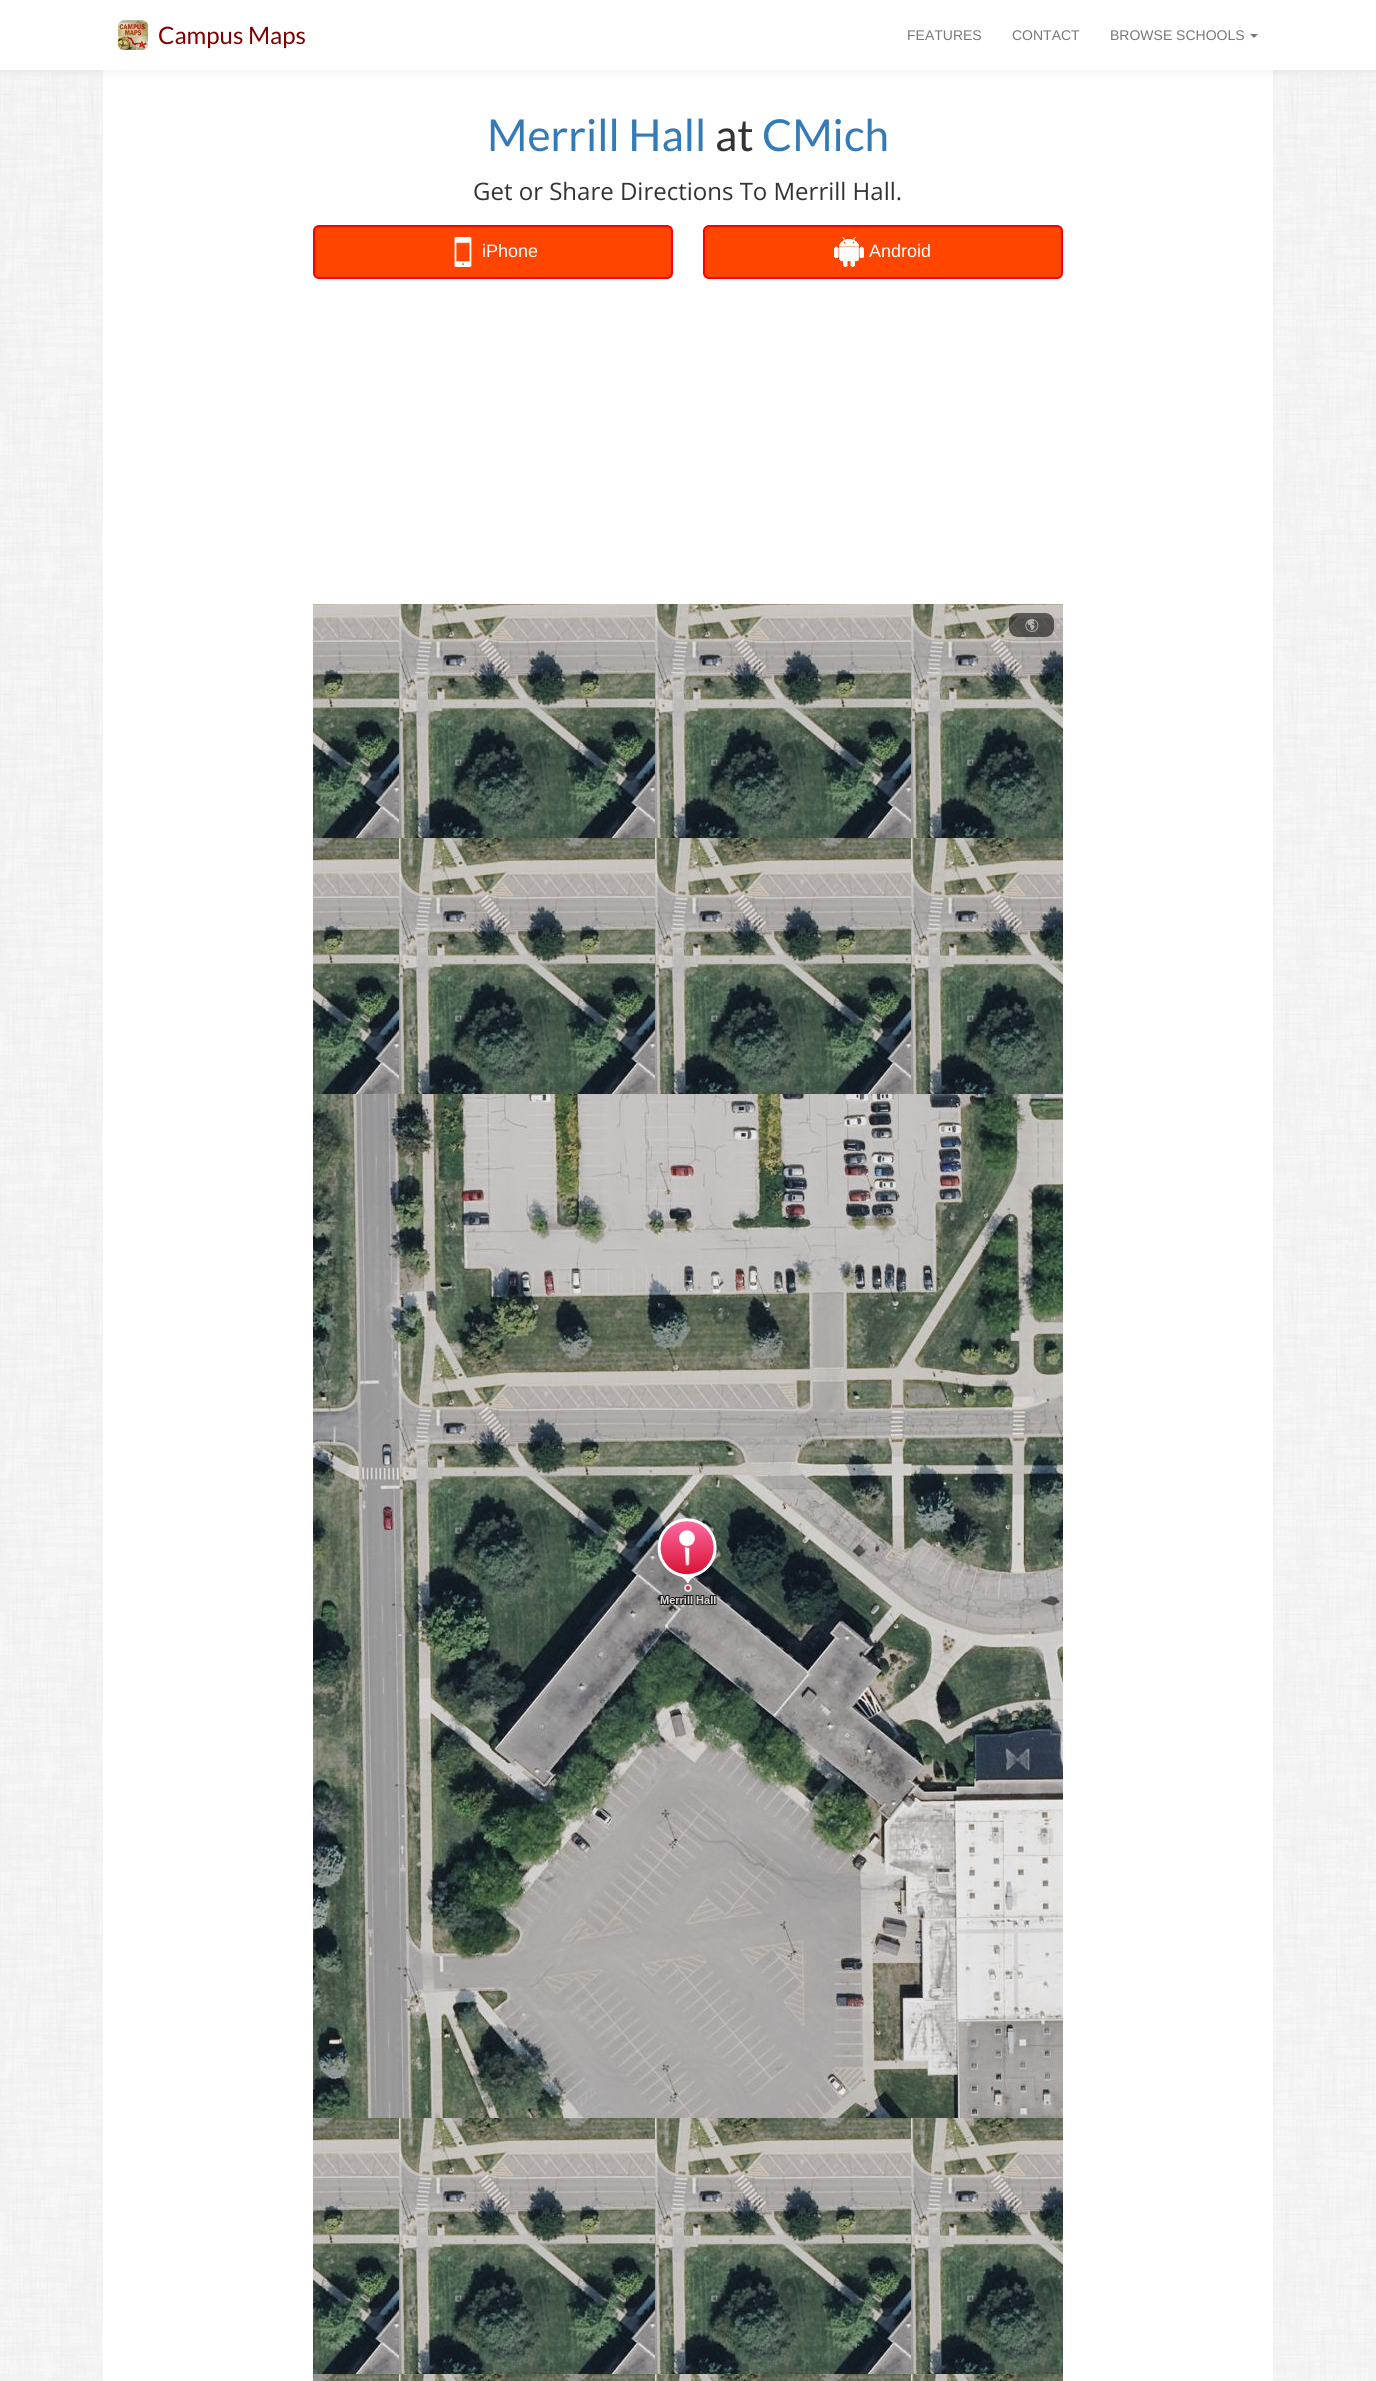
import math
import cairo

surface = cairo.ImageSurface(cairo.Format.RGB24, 1376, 2381)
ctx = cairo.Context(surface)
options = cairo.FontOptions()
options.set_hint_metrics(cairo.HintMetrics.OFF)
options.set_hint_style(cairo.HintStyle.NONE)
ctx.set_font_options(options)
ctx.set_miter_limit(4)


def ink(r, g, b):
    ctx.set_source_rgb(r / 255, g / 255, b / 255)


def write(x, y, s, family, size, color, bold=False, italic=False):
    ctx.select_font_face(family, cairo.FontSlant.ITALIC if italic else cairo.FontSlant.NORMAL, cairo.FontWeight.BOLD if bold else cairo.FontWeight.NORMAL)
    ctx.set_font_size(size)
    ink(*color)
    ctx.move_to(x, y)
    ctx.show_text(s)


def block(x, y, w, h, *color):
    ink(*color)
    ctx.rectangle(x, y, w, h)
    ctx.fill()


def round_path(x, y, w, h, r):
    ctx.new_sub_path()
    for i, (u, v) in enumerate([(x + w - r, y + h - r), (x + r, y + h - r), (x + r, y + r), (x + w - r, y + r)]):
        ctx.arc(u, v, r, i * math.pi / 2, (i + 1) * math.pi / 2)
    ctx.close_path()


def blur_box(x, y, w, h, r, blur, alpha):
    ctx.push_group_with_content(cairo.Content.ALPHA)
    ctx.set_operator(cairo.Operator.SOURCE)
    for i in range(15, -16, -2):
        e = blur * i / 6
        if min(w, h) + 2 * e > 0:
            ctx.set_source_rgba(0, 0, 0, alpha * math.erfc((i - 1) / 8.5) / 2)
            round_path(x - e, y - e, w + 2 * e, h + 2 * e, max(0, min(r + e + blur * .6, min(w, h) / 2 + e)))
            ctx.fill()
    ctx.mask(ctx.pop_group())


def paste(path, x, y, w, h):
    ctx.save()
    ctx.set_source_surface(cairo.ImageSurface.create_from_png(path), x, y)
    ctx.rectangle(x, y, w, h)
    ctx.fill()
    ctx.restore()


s1 = dict(family="Lato", size=24, color=(128, 0, 0))
s2 = dict(family="Liberation Sans", size=14, color=(119, 119, 119))
s3 = dict(family="Lato", size=44, color=(51, 122, 183))
s4 = dict(family="Lato", size=44, color=(51, 51, 51))
s5 = dict(family="Open Sans", size=24, color=(51, 51, 51))
s6 = dict(family="Liberation Sans", size=18, color=(255, 255, 255))

ink(255, 255, 255)
ctx.paint()
paste("pic1.png", 0, 70, 1376, 2311)
block(103, 70, 1170, 2311, 255, 255, 255)
ink(50, 50, 50)
blur_box(0, 2, 1376, 70, 0, 4, 0.08)
block(0, 0, 1376, 70, 255, 255, 255)
paste("pic2.png", 118, 20, 30, 30)
write(158, 44, "Campus Maps", **s1)
write(907, 40, "FEATURES", **s2)
write(1012, 40, "CONTACT", **s2)
write(1110, 40, "BROWSE SCHOOLS", **s2)
ctx.new_path()
ctx.move_to(1250, 34)
ctx.line_to(1258, 34)
ctx.line_to(1254, 38)
ctx.close_path()
ctx.fill()
write(487, 151, "Merrill Hall", **s3)
write(715, 151, "at", **s4)
write(762, 151, "CMich", **s3)
write(473, 200, "Get or Share Directions To Merrill Hall.", **s5)
ink(255, 69, 0)
round_path(314, 226, 358, 52, 5)
ctx.fill_preserve()
ink(255, 0, 0)
ctx.stroke()
paste("pic3.png", 453, 237, 19, 30)
write(482, 257, "iPhone", **s6)
ink(255, 69, 0)
round_path(704, 226, 358, 52, 5)
ctx.fill_preserve()
ink(255, 0, 0)
ctx.stroke()
paste("pic4.png", 834, 237, 30, 30)
write(869, 257, "Android", **s6)
paste("pic5.png", 313, 604, 750, 1777)
ctx.rectangle(1009.25, 613.25, 45.5, 24.5)
ctx.set_source_rgba(1, 1, 1, 0.05)
ctx.set_line_width(0.5)
ctx.stroke()
ctx.set_source_rgba(0.071, 0.071, 0.071, 0.6)
round_path(1009, 613, 45, 24, 9)
ctx.fill()
paste("pic6.png", 1025, 618, 14, 14)
surface.write_to_png("screenshot.png")
